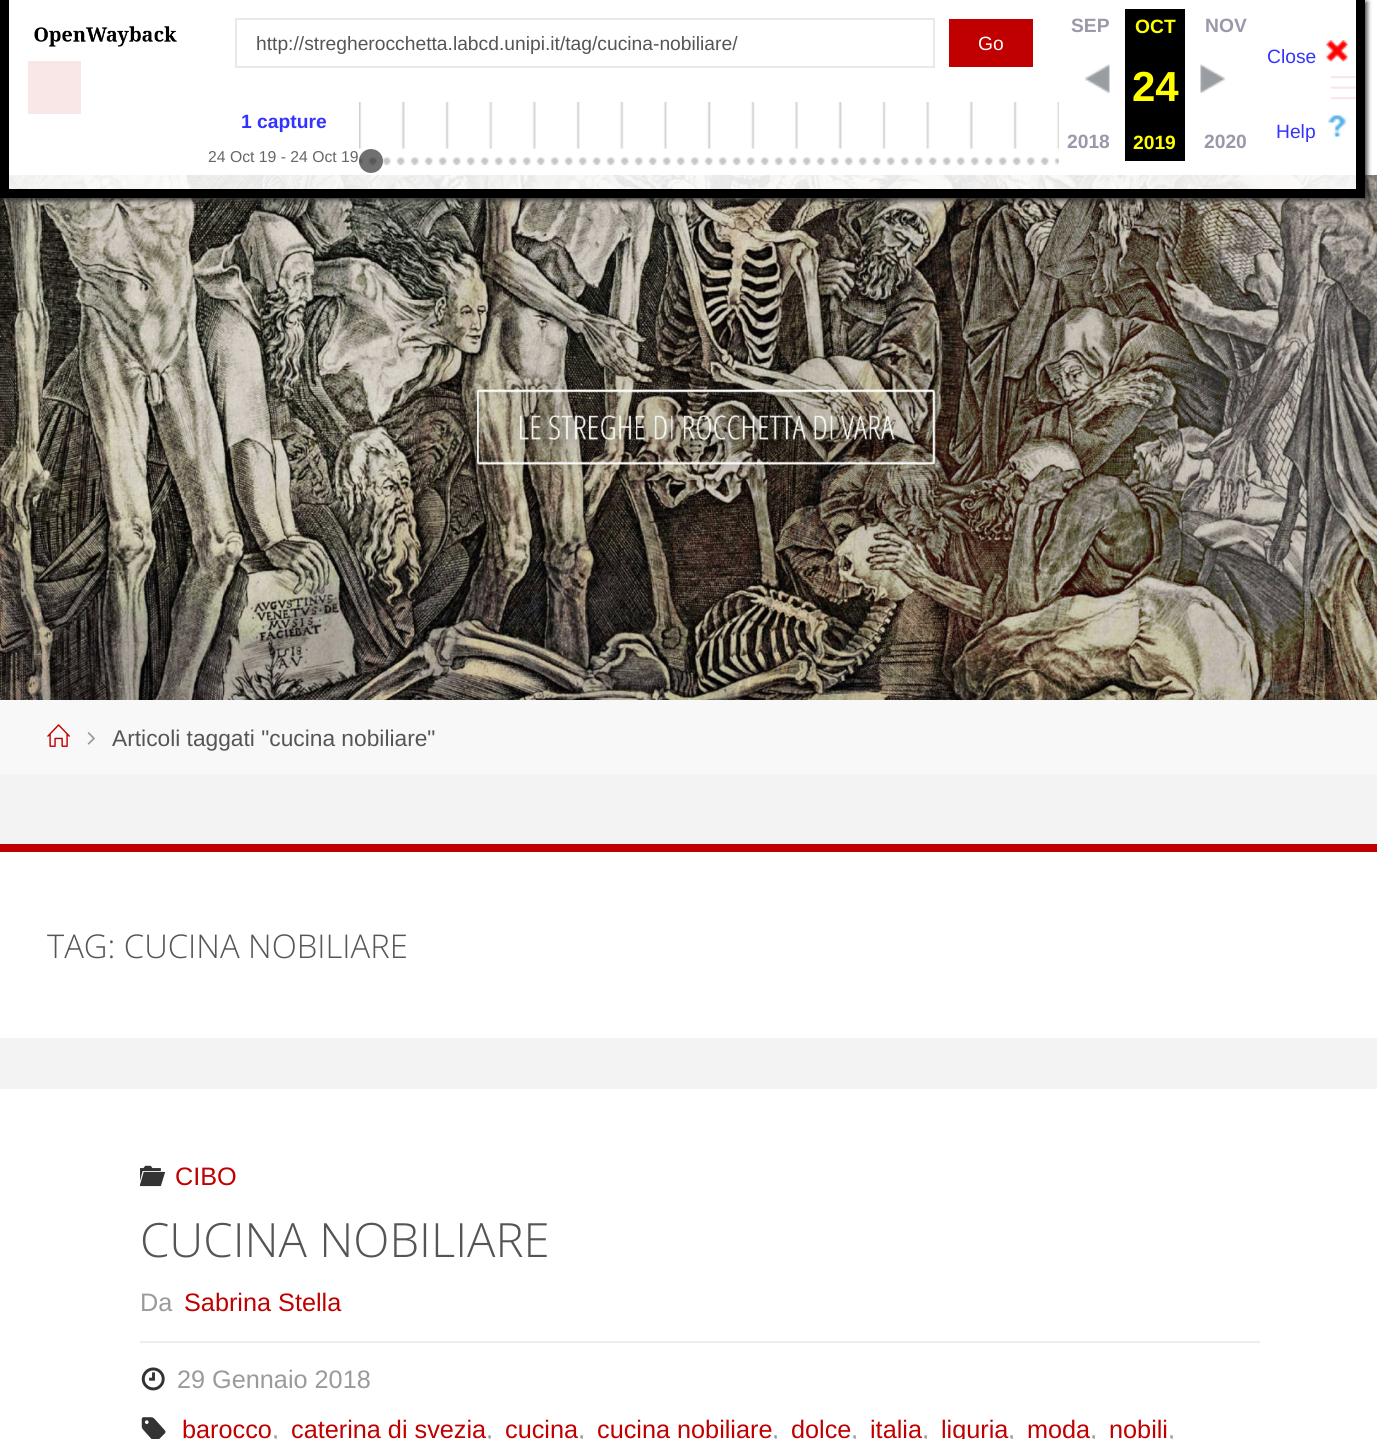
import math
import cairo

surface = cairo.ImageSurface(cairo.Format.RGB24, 1377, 1439)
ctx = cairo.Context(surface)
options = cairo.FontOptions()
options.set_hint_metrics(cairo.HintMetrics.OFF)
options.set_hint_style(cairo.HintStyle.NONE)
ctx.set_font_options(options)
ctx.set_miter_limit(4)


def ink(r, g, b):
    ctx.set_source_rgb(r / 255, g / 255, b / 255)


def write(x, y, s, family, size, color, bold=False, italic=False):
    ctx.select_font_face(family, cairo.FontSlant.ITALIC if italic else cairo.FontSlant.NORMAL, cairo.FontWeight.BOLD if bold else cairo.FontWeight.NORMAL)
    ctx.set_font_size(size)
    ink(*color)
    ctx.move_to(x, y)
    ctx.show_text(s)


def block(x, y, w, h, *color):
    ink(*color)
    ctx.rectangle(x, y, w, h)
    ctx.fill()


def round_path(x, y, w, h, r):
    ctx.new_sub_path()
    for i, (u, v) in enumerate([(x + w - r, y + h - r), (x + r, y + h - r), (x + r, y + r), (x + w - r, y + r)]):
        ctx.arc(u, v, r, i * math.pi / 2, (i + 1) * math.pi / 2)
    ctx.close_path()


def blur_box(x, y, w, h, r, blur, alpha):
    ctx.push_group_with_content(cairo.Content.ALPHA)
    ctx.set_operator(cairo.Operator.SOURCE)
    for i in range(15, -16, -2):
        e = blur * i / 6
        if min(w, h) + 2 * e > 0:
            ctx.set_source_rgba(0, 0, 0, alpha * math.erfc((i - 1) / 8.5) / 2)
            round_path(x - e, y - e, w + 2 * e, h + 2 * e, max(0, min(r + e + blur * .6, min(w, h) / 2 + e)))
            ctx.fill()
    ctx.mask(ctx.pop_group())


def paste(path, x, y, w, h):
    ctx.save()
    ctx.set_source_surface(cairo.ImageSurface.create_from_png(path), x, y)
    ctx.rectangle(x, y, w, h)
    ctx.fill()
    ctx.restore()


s1 = dict(family="Liberation Sans", size=19.25, color=(85, 85, 85))
s2 = dict(family="Liberation Sans", size=19.25, color=(255, 255, 255))
s3 = dict(family="Liberation Sans", size=19.25, color=(153, 153, 170), bold=True)
s4 = dict(family="Liberation Sans", size=19.25, color=(255, 255, 0), bold=True)
s5 = dict(family="Liberation Sans", size=42, color=(255, 255, 0), bold=True)
s6 = dict(family="Liberation Sans", size=19.25, color=(51, 51, 255), bold=True)
s7 = dict(family="Liberation Sans", size=15.75, color=(102, 102, 102))
s8 = dict(family="Liberation Sans", size=19.25, color=(51, 51, 255))
s9 = dict(family="Liberation Sans", size=22.75, color=(85, 85, 85))
s10 = dict(family="Open Sans Light", size=32.75, color=(85, 85, 85))
s11 = dict(family="Liberation Sans", size=25.25, color=(192, 0, 0))
s12 = dict(family="Open Sans Light", size=47.25, color=(85, 85, 85))
s13 = dict(family="Liberation Sans", size=25.25, color=(154, 154, 154))

ink(243, 243, 243)
ctx.paint()
block(9, 0, 1368, 175, 255, 255, 255)
block(28, 61, 53, 53, 192, 0, 0)
paste("pic1.png", 1330, 76, 26, 24)
paste("pic2.png", 0, 175, 1377, 525)
ctx.save()
ctx.set_fill_rule(cairo.FillRule.EVEN_ODD)
ctx.new_path()
ctx.move_to(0, 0)
ctx.line_to(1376, 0)
ctx.line_to(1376, 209)
ctx.line_to(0, 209)
ctx.close_path()
ctx.move_to(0, 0)
ctx.line_to(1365, 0)
ctx.line_to(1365, 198)
ctx.line_to(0, 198)
ctx.close_path()
ctx.clip()
ink(51, 51, 51)
blur_box(2, 2, 1365, 198, 0, 2.5, 1)
ctx.restore()
ctx.set_source_rgba(1, 1, 1, 0.9)
ctx.rectangle(9, 61, 1347, 128)
ctx.fill()
block(1356, 0, 9, 189, 0, 0, 0)
block(9, 189, 1356, 9, 0, 0, 0)
block(0, 0, 9, 198, 0, 0, 0)
paste("pic3.png", 34, 26, 143, 21)
ctx.rectangle(236, 19, 698, 48)
ink(233, 233, 233)
ctx.stroke()
write(256, 50, "http://stregherocchetta.labcd.unipi.it/tag/cucina-nobiliare/", **s1)
block(949, 19, 84, 48, 192, 0, 0)
write(978, 50, "Go", **s2)
write(1071, 32, "SEP", **s3)
block(1125, 9, 60, 152, 0, 0, 0)
write(1135, 33, "OCT", **s4)
write(1205, 32, "NOV", **s3)
paste("pic4.png", 1085, 64, 25, 29)
write(1132, 101, "24", **s5)
paste("pic5.png", 1200, 64, 25, 29)
write(1067, 148, "2018", **s3)
write(1133, 149, "2019", **s4)
write(1204, 148, "2020", **s3)
write(241, 128, "1 capture", **s6)
write(208, 162, "24 Oct 19 - 24 Oct 19", **s7)
paste("pic6.png", 359, 102, 700, 47)
paste("pic7.png", 359, 157, 700, 8)
ctx.set_source_rgba(0, 0, 0, 0.56)
ctx.arc(371, 161, 12, 0, 2 * math.pi)
ctx.fill()
paste("pic8.png", 1326, 40, 22, 22)
write(1267, 63, "Close", **s8)
paste("pic9.png", 1327, 115, 20, 22)
write(1276, 138, "Help", **s8)
block(0, 700, 1377, 74, 248, 248, 248)
paste("pic10.png", 47, 724, 23, 23)
paste("pic11.png", 87, 732, 8, 13)
write(112, 746, "Articoli taggati \"cucina nobiliare\"", **s9)
block(0, 852, 1377, 186, 255, 255, 255)
block(0, 844, 1377, 8, 192, 0, 0)
write(47, 958, "TAG: CUCINA NOBILIARE", **s10)
block(0, 1089, 1377, 350, 255, 255, 255)
paste("pic12.png", 140, 1165, 26, 22)
write(175, 1185, "CIBO", **s11)
write(140, 1257, "CUCINA NOBILIARE", **s12)
block(140, 1341, 1120, 2, 238, 238, 238)
write(140, 1311, "Da", **s13)
write(184, 1311, "Sabrina Stella", **s11)
paste("pic13.png", 141, 1367, 24, 24)
write(177, 1388, "29 Gennaio 2018", **s13)
paste("pic14.png", 141, 1417, 25, 22)
write(182, 1438, "barocco", **s11)
write(272, 1438, ",", **s13)
write(291, 1438, "caterina di svezia", **s11)
write(486, 1438, ",", **s13)
write(505, 1438, "cucina", **s11)
write(578, 1438, ",", **s13)
write(597, 1438, "cucina nobiliare", **s11)
write(772, 1438, ",", **s13)
write(791, 1438, "dolce", **s11)
write(851, 1438, ",", **s13)
write(870, 1438, "italia", **s11)
write(922, 1438, ",", **s13)
write(941, 1438, "liguria", **s11)
write(1008, 1438, ",", **s13)
write(1027, 1438, "moda", **s11)
write(1090, 1438, ",", **s13)
write(1109, 1438, "nobili", **s11)
write(1168, 1438, ",", **s13)
surface.write_to_png("screenshot.png")
